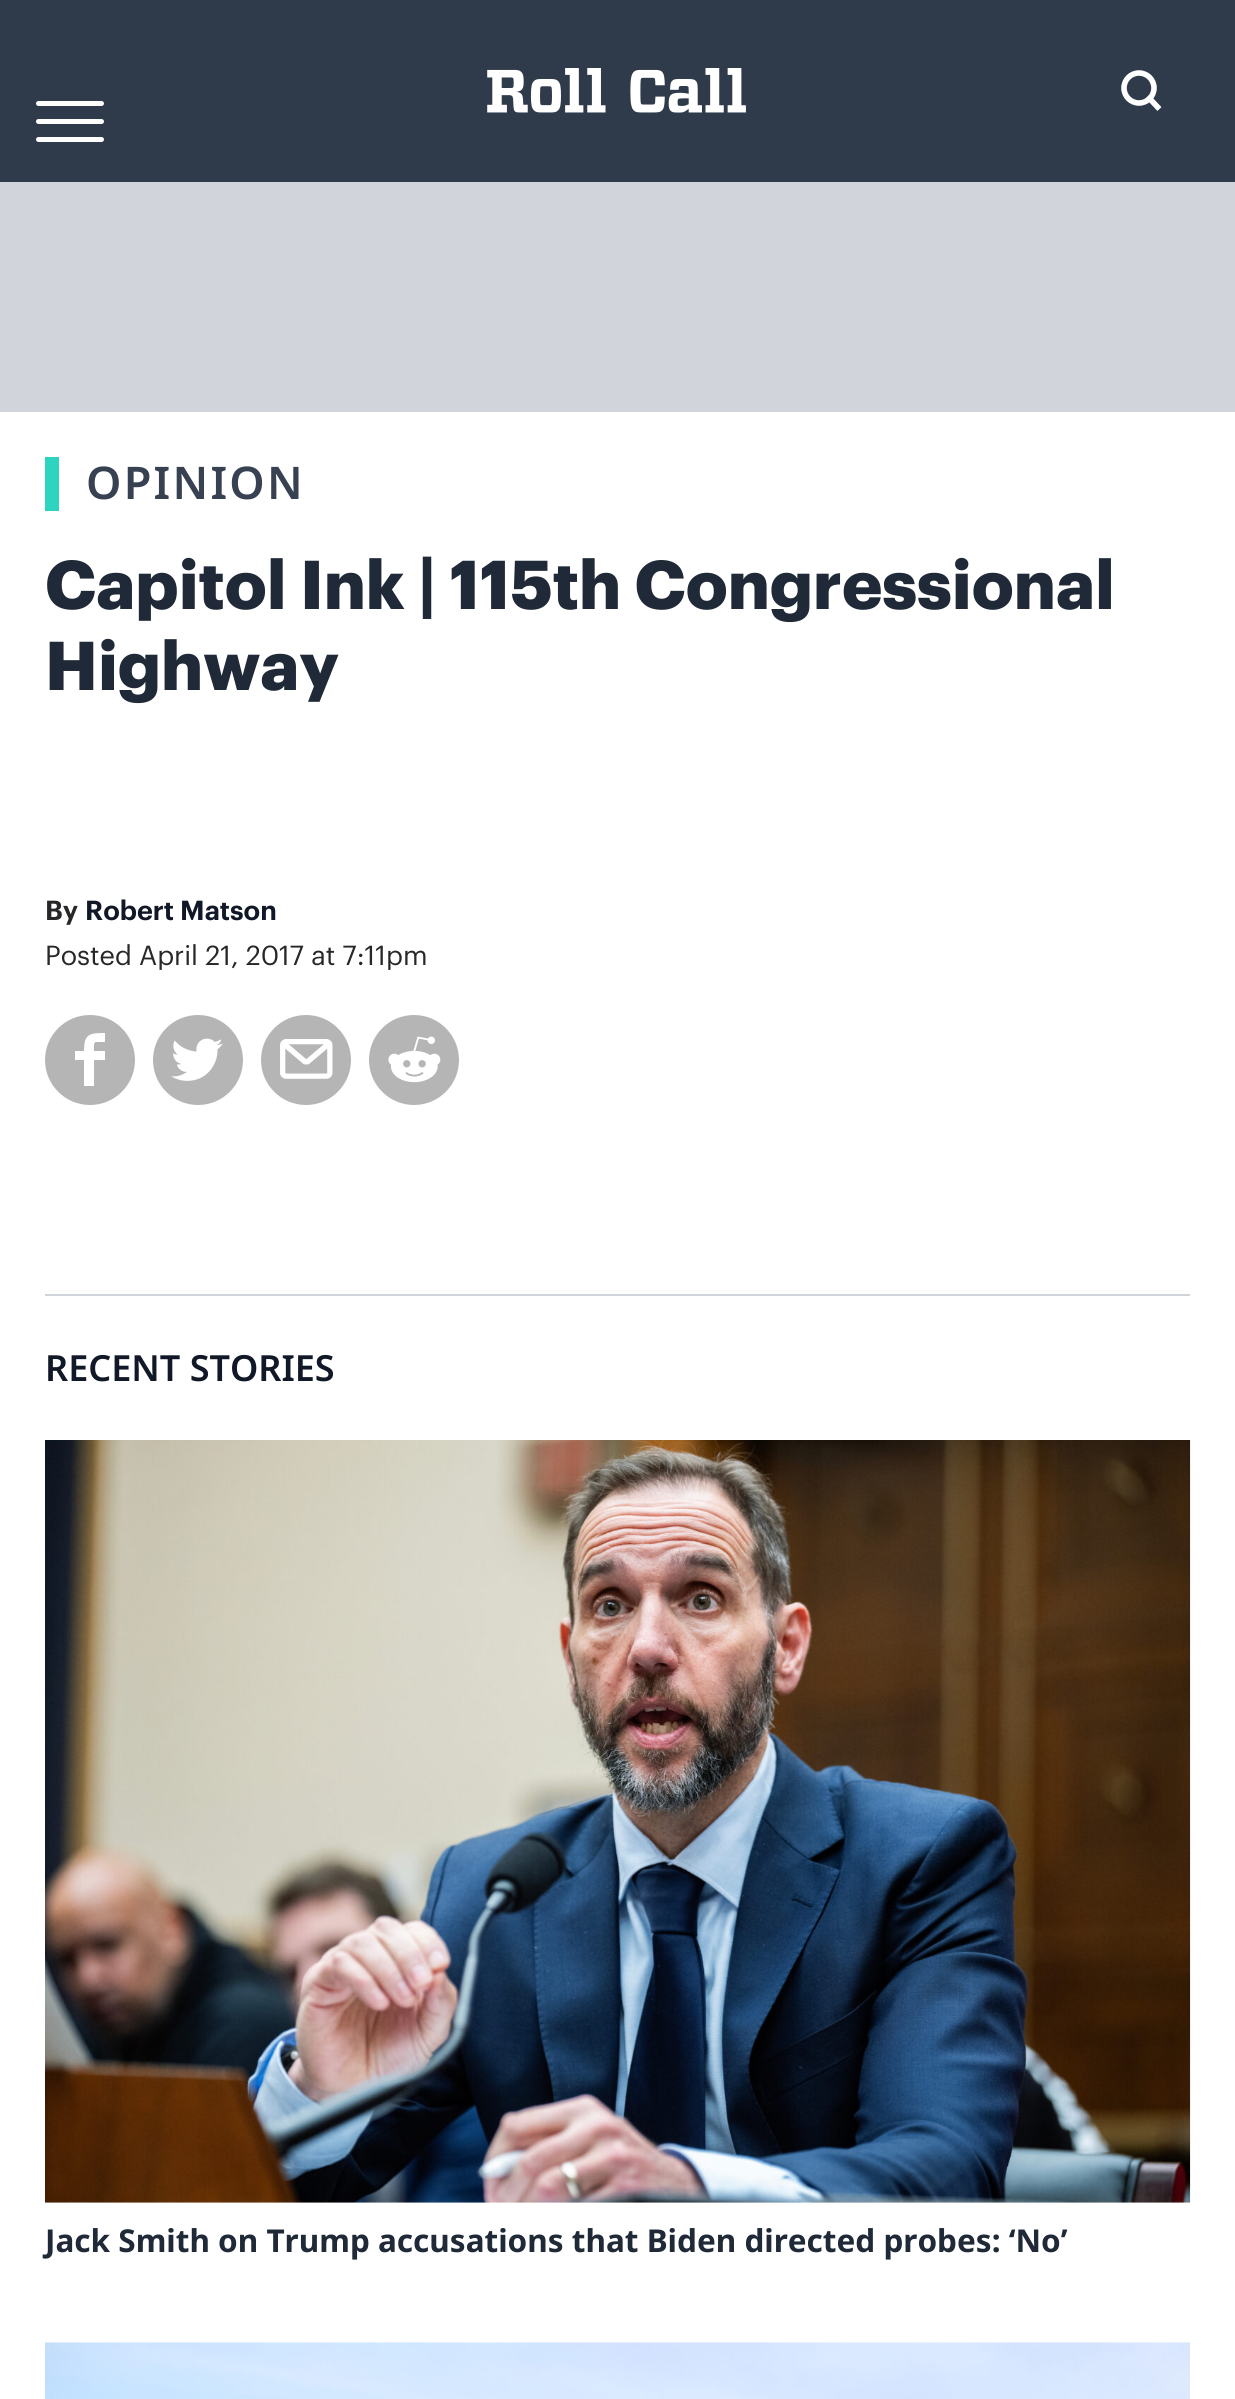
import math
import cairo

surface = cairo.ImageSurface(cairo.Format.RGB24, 1235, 2399)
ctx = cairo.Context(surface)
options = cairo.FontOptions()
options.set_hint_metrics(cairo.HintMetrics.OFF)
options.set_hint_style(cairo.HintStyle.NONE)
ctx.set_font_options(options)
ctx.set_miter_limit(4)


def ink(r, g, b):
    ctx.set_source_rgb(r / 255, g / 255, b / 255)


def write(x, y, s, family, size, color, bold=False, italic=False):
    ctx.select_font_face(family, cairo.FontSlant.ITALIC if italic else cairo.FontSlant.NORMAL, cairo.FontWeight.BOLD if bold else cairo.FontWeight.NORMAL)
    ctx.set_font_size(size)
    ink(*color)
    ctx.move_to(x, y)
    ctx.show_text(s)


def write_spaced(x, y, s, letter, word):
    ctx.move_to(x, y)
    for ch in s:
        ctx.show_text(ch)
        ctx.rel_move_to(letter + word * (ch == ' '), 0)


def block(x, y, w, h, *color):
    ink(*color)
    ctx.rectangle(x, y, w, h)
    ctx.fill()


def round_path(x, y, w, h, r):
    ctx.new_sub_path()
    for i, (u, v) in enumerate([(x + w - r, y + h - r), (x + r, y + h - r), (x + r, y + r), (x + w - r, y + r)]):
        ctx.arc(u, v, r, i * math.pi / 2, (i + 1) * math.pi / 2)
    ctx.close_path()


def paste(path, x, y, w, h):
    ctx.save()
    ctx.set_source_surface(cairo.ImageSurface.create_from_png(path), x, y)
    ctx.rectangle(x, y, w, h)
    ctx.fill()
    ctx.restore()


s1 = dict(family="Graphik", size=67.5, color=(31, 41, 55), bold=True)
s2 = dict(family="Graphik SemiBold", size=27, color=(39, 39, 42))
s3 = dict(family="Graphik SemiBold", size=27, color=(17, 24, 39))
s4 = dict(family="Graphik", size=27, color=(39, 39, 42))
s5 = dict(family="Noto Sans SemiBold", size=36, color=(17, 24, 39))
s6 = dict(family="Noto Sans", size=31.5, color=(31, 41, 55), bold=True)

ink(255, 255, 255)
ctx.paint()
block(0, 0, 1235, 182, 47, 59, 75)
paste("pic1.png", 487, 68, 259, 45)
ctx.arc(1139, 88, 15, 0, 2 * math.pi)
ink(255, 255, 255)
ctx.set_line_width(5.6)
ctx.stroke()
ctx.new_path()
ctx.move_to(1157.5, 107)
ctx.line_to(1149.5, 98.5)
ctx.set_line_cap(cairo.LineCap.SQUARE)
ctx.stroke()
round_path(36, 119, 68, 5, 2.5)
ctx.fill()
round_path(36, 101, 68, 5, 2.5)
ctx.fill()
round_path(36, 137, 68, 5, 2.5)
ctx.fill()
block(0, 182, 1235, 230, 209, 213, 219)
block(45, 457, 14, 54, 45, 212, 191)
ctx.select_font_face("Noto Sans SemiBold")
ctx.set_font_size(45)
ink(55, 65, 81)
write_spaced(86, 499, "OPINION", 2.25, 0)
write(45, 609, "Capitol Ink | 115th Congressional", **s1)
write(45, 690, "Highway", **s1)
write(45, 920, "By", **s2)
write(85, 920, "Robert Matson", **s3)
write(45, 965, "Posted April 21, 2017 at 7:11pm", **s4)
ink(181, 181, 181)
ctx.new_path()
ctx.arc(90, 1060, 45, 0, 2 * math.pi)
ctx.fill()
ink(255, 255, 255)
ctx.new_path()
ctx.move_to(96, 1042)
ctx.curve_to(93, 1042, 94, 1049, 94, 1051)
ctx.line_to(105, 1051)
ctx.line_to(105, 1060)
ctx.line_to(94, 1060)
ctx.line_to(94, 1086)
ctx.line_to(84, 1086)
ctx.line_to(84, 1060)
ctx.line_to(75, 1060)
ctx.line_to(75, 1051)
ctx.line_to(84, 1051)
ctx.curve_to(84, 1034, 89, 1033, 105, 1033)
ctx.line_to(105, 1042)
ctx.close_path()
ctx.fill()
ink(181, 181, 181)
ctx.arc(198, 1060, 45, 0, 2 * math.pi)
ctx.fill()
paste("pic2.png", 171, 1038, 52, 43)
ctx.arc(306, 1060, 45, 0, 2 * math.pi)
ctx.fill()
paste("pic3.png", 280, 1039, 53, 40)
ctx.arc(414, 1060, 45, 0, 2 * math.pi)
ctx.fill()
paste("pic4.png", 388, 1036, 53, 47)
block(45, 1294, 1145, 2, 209, 213, 219)
write(45, 1381, "RECENT STORIES", **s5)
paste("pic5.png", 45, 1440, 1146, 763)
write(45, 2252, "Jack Smith on Trump accusations that Biden directed probes: ‘No’", **s6)
paste("pic6.png", 45, 2342, 1145, 57)
surface.write_to_png("screenshot.png")
